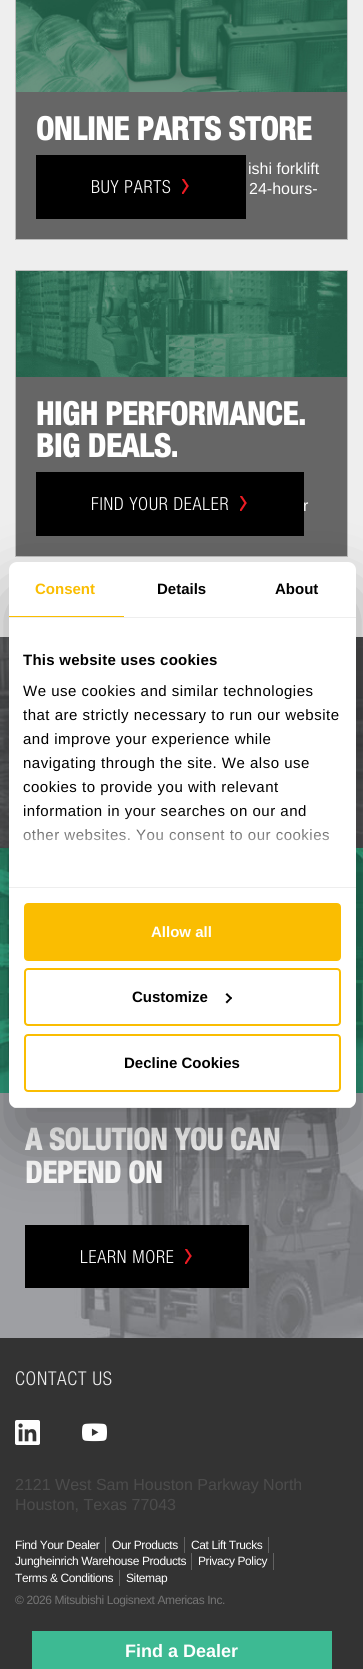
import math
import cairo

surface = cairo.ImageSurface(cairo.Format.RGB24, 363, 1669)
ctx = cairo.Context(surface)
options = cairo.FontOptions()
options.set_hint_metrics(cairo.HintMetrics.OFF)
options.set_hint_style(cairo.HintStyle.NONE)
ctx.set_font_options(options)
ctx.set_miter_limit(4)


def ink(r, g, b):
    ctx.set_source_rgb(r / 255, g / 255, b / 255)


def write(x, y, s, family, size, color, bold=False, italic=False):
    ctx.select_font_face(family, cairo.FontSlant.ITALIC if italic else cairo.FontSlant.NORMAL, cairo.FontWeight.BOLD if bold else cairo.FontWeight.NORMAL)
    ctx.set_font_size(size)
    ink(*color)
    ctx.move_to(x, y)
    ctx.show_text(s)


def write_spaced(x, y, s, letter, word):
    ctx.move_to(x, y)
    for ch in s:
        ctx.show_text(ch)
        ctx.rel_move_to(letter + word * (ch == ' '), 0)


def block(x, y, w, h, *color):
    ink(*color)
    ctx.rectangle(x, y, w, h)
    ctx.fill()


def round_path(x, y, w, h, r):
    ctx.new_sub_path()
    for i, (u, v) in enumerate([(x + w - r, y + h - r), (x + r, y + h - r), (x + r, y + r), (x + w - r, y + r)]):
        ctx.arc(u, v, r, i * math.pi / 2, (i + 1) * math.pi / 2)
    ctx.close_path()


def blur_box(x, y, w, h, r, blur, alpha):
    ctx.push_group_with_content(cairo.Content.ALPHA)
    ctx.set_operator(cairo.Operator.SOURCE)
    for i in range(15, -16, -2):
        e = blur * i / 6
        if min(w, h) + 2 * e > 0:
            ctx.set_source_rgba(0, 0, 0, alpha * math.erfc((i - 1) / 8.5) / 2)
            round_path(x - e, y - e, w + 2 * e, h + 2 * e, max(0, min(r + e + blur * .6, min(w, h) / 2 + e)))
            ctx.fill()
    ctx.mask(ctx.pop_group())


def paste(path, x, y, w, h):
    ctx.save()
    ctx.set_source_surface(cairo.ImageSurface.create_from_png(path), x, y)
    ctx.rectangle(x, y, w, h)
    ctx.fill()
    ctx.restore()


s1 = dict(family="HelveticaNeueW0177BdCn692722", size=32, color=(255, 255, 255), bold=True)
s2 = dict(family="Liberation Sans", size=16, color=(255, 255, 255))
s3 = dict(family="HelveticaNeueW0177BdCn692722", size=30, color=(255, 255, 255), bold=True)
s4 = dict(family="Liberation Sans", size=16, color=(76, 76, 76))
s5 = dict(family="Liberation Sans", size=18, color=(255, 255, 255), bold=True)
s6 = dict(family="Liberation Sans", size=15, color=(250, 189, 1), bold=True)
s7 = dict(family="Liberation Sans", size=15, color=(0, 0, 0), bold=True)
s8 = dict(family="Liberation Sans", size=15, color=(255, 255, 255), bold=True)

ink(238, 238, 238)
ctx.paint()
ctx.rectangle(15.5, -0.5, 332, 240)
ink(187, 187, 187)
ctx.set_line_width(1)
ctx.stroke()
paste("pic1.png", 16, 0, 331, 92)
block(16, 92, 331, 147, 102, 102, 102)
write(36, 140, "ONLINE PARTS STORE", **s1)
block(36, 155, 210, 64, 0, 0, 0)
ctx.select_font_face("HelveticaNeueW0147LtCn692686")
ctx.set_font_size(18)
ink(255, 255, 255)
write_spaced(91, 193, "BUY PARTS", 0.75, 0)
paste("pic2.png", 182, 179, 7, 15)
write(248, 174, "ishi forklift", **s2)
write(249, 194, "24-hours-", **s2)
ctx.rectangle(15.5, 270.5, 332, 286)
ink(187, 187, 187)
ctx.stroke()
paste("pic3.png", 16, 271, 331, 106)
block(16, 377, 331, 179, 102, 102, 102)
write(36, 425, "HIGH PERFORMANCE.", **s1)
write(36, 457, "BIG DEALS.", **s1)
write(303, 511, "r", **s2)
block(36, 472, 268, 64, 0, 0, 0)
ctx.select_font_face("HelveticaNeueW0147LtCn692686")
ctx.set_font_size(18)
ink(255, 255, 255)
write_spaced(91, 510, "FIND YOUR DEALER", 0.75, 0)
paste("pic2.png", 240, 496, 7, 15)
paste("pic4.png", 0, 637, 363, 211)
paste("pic5.png", 0, 848, 363, 245)
paste("pic6.png", 0, 1093, 363, 245)
write(25, 1150, "A SOLUTION YOU CAN", **s3)
write(25, 1183, "DEPEND ON", **s3)
block(25, 1225, 224, 63, 0, 0, 0)
ctx.select_font_face("HelveticaNeueW0147LtCn692686")
ctx.set_font_size(18)
ink(255, 255, 255)
write_spaced(80, 1263, "LEARN MORE", 0.75, 0)
paste("pic2.png", 185, 1249, 7, 15)
block(0, 1338, 363, 331, 51, 51, 51)
ctx.set_font_size(19)
ink(238, 238, 238)
write_spaced(15, 1385, "CONTACT US", 0.75, 0)
paste("pic7.png", 15, 1420, 25, 25)
paste("pic8.png", 82, 1423, 25, 19)
write(15, 1490, "2121 West Sam Houston Parkway North", **s4)
write(15, 1510, "Houston, Texas 77043", **s4)
block(105, 1537, 1, 16, 98, 98, 98)
ctx.set_font_size(12)
ink(255, 255, 255)
write_spaced(15, 1549, "Find Your Dealer", -0.4, 0)
block(184, 1537, 1, 16, 98, 98, 98)
ink(255, 255, 255)
write_spaced(112, 1549, "Our Products", -0.4, 0)
block(268, 1537, 1, 16, 98, 98, 98)
ink(255, 255, 255)
write_spaced(191, 1549, "Cat Lift Trucks", -0.4, 0)
block(191, 1553, 1, 17, 98, 98, 98)
ink(255, 255, 255)
write_spaced(15, 1565, "Jungheinrich Warehouse Products", -0.4, 0)
block(273, 1553, 1, 17, 98, 98, 98)
ink(255, 255, 255)
write_spaced(198, 1565, "Privacy Policy", -0.4, 0)
block(119, 1570, 1, 16, 98, 98, 98)
ink(255, 255, 255)
write_spaced(15, 1582, "Terms & Conditions", -0.4, 0)
write_spaced(126, 1582, "Sitemap", -0.4, 0)
ink(117, 117, 117)
write_spaced(15, 1604, "© 2026 Mitsubishi Logisnext Americas Inc.", -0.4, 0)
block(32, 1631, 300, 38, 61, 186, 147)
write(125, 1657, "Find a Dealer", **s5)
ink(0, 0, 0)
blur_box(9, 594, 347, 546, 8, 34, 0.3)
ink(255, 255, 255)
round_path(9, 562, 347, 546, 8)
ctx.fill()
block(9, 617, 347, 1, 238, 238, 238)
block(9, 616, 115, 1, 250, 189, 1)
write(35, 594, "Consent", **s6)
write(157, 594, "Details", **s7)
write(275, 594, "About", **s7)
block(9, 887, 347, 1, 238, 238, 238)
ink(0, 0, 0)
write_spaced(23, 665, "This website uses cookies", 0.25, 0)
ctx.select_font_face("Liberation Sans")
write_spaced(23, 696, "We use cookies and similar technologies", 0.5, 0)
write_spaced(23, 720, "that are strictly necessary to run our website", 0.5, 0)
write_spaced(23, 744, "and improve your experience while", 0.5, 0)
write_spaced(23, 768, "navigating through the site. We also use", 0.5, 0)
write_spaced(23, 792, "cookies to provide you with relevant", 0.5, 0)
write_spaced(23, 816, "information in your searches on our and", 0.5, 0)
write_spaced(23, 840, "other websites. You consent to our cookies", 0.5, 0)
gradient = cairo.LinearGradient(176, 887, 176, 812)
gradient.add_color_stop_rgba(0, 1, 1, 1, 1)
gradient.add_color_stop_rgba(0.5, 1, 1, 1, 0.8)
gradient.add_color_stop_rgba(1, 1, 1, 1, 0)
ctx.set_source(gradient)
ctx.rectangle(23, 813, 306, 28)
ctx.fill()
ctx.save()
round_path(9, 562, 347, 546, 8)
ctx.clip()
block(9, 1107, 347, 1, 238, 238, 238)
ctx.restore()
ink(250, 189, 1)
round_path(25, 904, 315, 56, 3)
ctx.fill_preserve()
ctx.set_line_width(2)
ctx.stroke()
write(151, 937, "Allow all", **s8)
round_path(25, 969, 315, 56, 3)
ink(250, 189, 1)
ctx.stroke()
write(132, 1002, "Customize", **s7)
ctx.new_path()
ctx.move_to(227, 993)
ctx.line_to(232, 998)
ctx.line_to(231, 999.5)
ctx.line_to(225.5, 994.5)
ctx.close_path()
ctx.fill()
ctx.new_path()
ctx.move_to(231, 997)
ctx.line_to(232, 998)
ctx.line_to(227, 1003.5)
ctx.line_to(225.5, 1002)
ctx.close_path()
ctx.fill()
round_path(25, 1035, 315, 56, 3)
ink(250, 189, 1)
ctx.stroke()
write(124, 1068, "Decline Cookies", **s7)
surface.write_to_png("screenshot.png")
